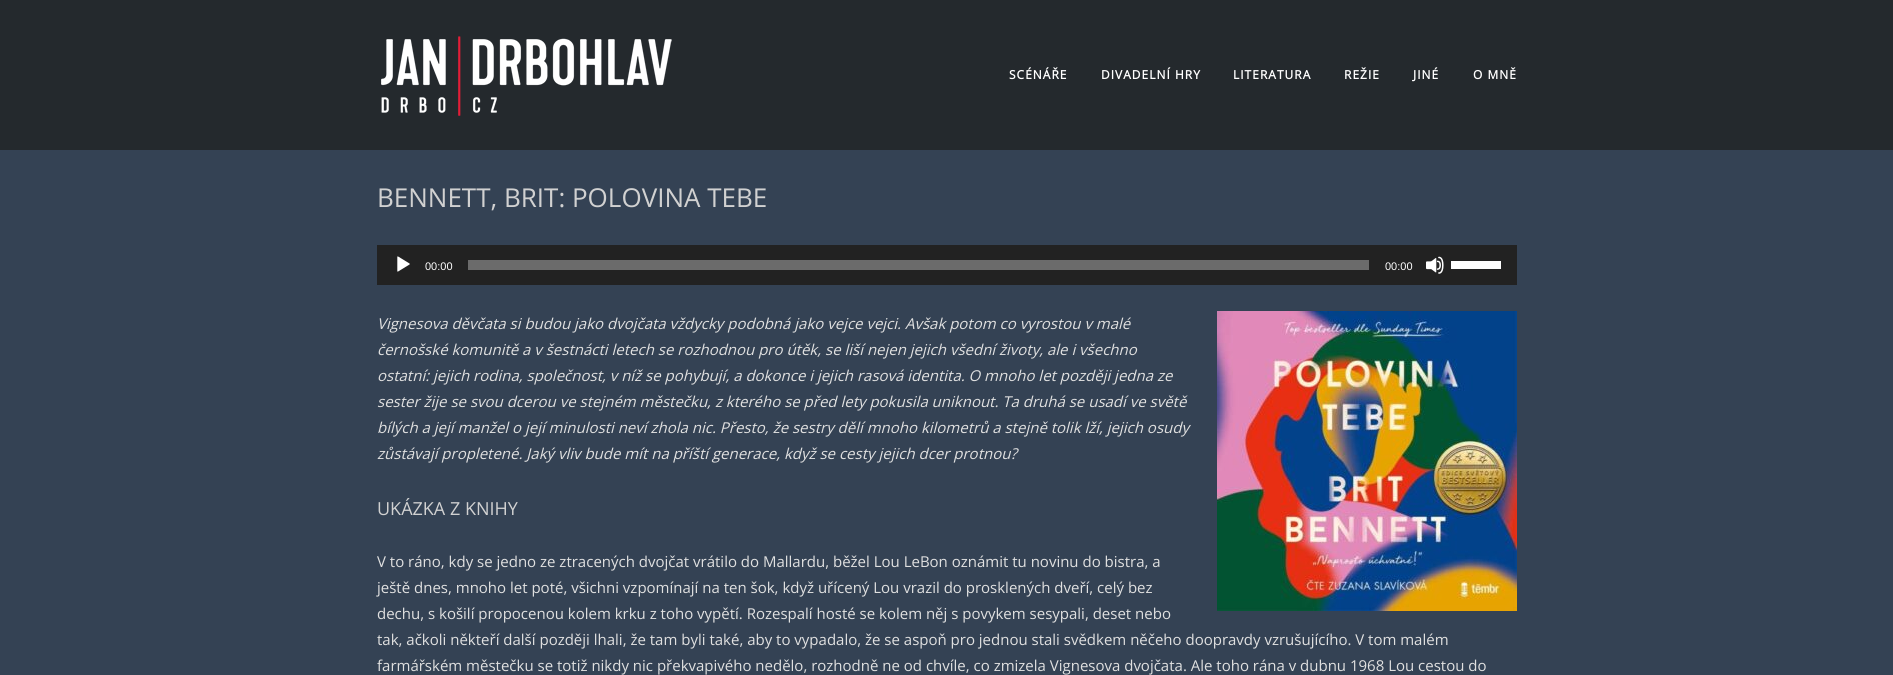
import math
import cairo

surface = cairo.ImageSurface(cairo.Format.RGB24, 1893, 675)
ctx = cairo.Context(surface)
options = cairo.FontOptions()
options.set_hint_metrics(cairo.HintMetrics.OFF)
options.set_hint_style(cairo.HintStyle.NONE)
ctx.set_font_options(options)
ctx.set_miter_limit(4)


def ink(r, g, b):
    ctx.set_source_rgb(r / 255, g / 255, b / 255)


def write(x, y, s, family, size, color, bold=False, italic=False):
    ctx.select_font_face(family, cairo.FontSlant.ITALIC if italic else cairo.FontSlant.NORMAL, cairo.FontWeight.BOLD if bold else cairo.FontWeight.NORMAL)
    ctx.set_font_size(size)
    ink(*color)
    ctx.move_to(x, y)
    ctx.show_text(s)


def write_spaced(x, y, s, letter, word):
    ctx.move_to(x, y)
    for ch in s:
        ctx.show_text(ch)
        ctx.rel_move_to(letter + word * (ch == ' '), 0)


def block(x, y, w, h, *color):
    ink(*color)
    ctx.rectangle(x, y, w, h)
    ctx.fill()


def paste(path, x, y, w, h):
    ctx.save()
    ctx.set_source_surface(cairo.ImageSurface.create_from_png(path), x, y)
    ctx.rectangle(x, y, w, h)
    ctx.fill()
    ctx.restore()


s1 = dict(family="Open Sans", size=26, color=(209, 209, 209))
s2 = dict(family="Liberation Sans", size=11, color=(255, 255, 255))
s3 = dict(family="Open Sans", size=15, color=(224, 224, 224), italic=True)
s4 = dict(family="Open Sans", size=18, color=(209, 209, 209))
s5 = dict(family="Open Sans", size=15, color=(224, 224, 224))

ink(52, 66, 84)
ctx.paint()
block(0, 0, 1893, 150, 36, 41, 45)
paste("pic1.png", 381, 36, 291, 80)
ctx.select_font_face("Open Sans", cairo.FontSlant.NORMAL, cairo.FontWeight.BOLD)
ctx.set_font_size(12)
ink(255, 255, 255)
write_spaced(1009, 79, "SCÉNÁŘE", 1, 0)
write_spaced(1101, 79, "DIVADELNÍ HRY", 1, 0)
write_spaced(1233, 79, "LITERATURA", 1, 0)
write_spaced(1344, 79, "REŽIE", 1, 0)
write_spaced(1413, 79, "JINÉ", 1, 0)
write_spaced(1473, 79, "O MNĚ", 1, 0)
write(377, 207, "BENNETT, BRIT: POLOVINA TEBE", **s1)
block(377, 245, 1140, 40, 34, 34, 34)
paste("pic2.png", 397, 256, 13, 16)
write(425, 270, "00:00", **s2)
block(468, 260, 901, 10, 107, 107, 107)
write(1385, 270, "00:00", **s2)
paste("pic3.png", 1426, 256, 18, 18)
block(1451, 261, 50, 8, 255, 255, 255)
write(377, 329, "Vignesova děvčata si budou jako dvojčata vždycky podobná jako vejce vejci. Avšak potom co vyrostou v malé", **s3)
paste("pic4.png", 1217, 311, 300, 300)
write(377, 355, "černošské komunitě a v šestnácti letech se rozhodnou pro útěk, se liší nejen jejich všední životy, ale i všechno", **s3)
write(377, 381, "ostatní: jejich rodina, společnost, v níž se pohybují, a dokonce i jejich rasová identita. O mnoho let později jedna ze", **s3)
write(377, 407, "sester žije se svou dcerou ve stejném městečku, z kterého se před lety pokusila uniknout. Ta druhá se usadí ve světě", **s3)
write(377, 433, "bílých a její manžel o její minulosti neví zhola nic. Přesto, že sestry dělí mnoho kilometrů a stejně tolik lží, jejich osudy", **s3)
write(377, 459, "zůstávají propletené. Jaký vliv bude mít na příští generace, když se cesty jejich dcer protnou?", **s3)
write(377, 515, "UKÁZKA Z KNIHY", **s4)
write(377, 567, "V to ráno, kdy se jedno ze ztracených dvojčat vrátilo do Mallardu, běžel Lou LeBon oznámit tu novinu do bistra, a", **s5)
write(377, 593, "ještě dnes, mnoho let poté, všichni vzpomínají na ten šok, když uřícený Lou vrazil do prosklených dveří, celý bez", **s5)
write(377, 619, "dechu, s košilí propocenou kolem krku z toho vypětí. Rozespalí hosté se kolem něj s povykem sesypali, deset nebo", **s5)
write(377, 645, "tak, ačkoli někteří další později lhali, že tam byli také, aby to vypadalo, že se aspoň pro jednou stali svědkem něčeho doopravdy vzrušujícího. V tom malém", **s5)
write(377, 671, "farmářském městečku se totiž nikdy nic překvapivého nedělo, rozhodně ne od chvíle, co zmizela Vignesova dvojčata. Ale toho rána v dubnu 1968 Lou cestou do", **s5)
surface.write_to_png("screenshot.png")
